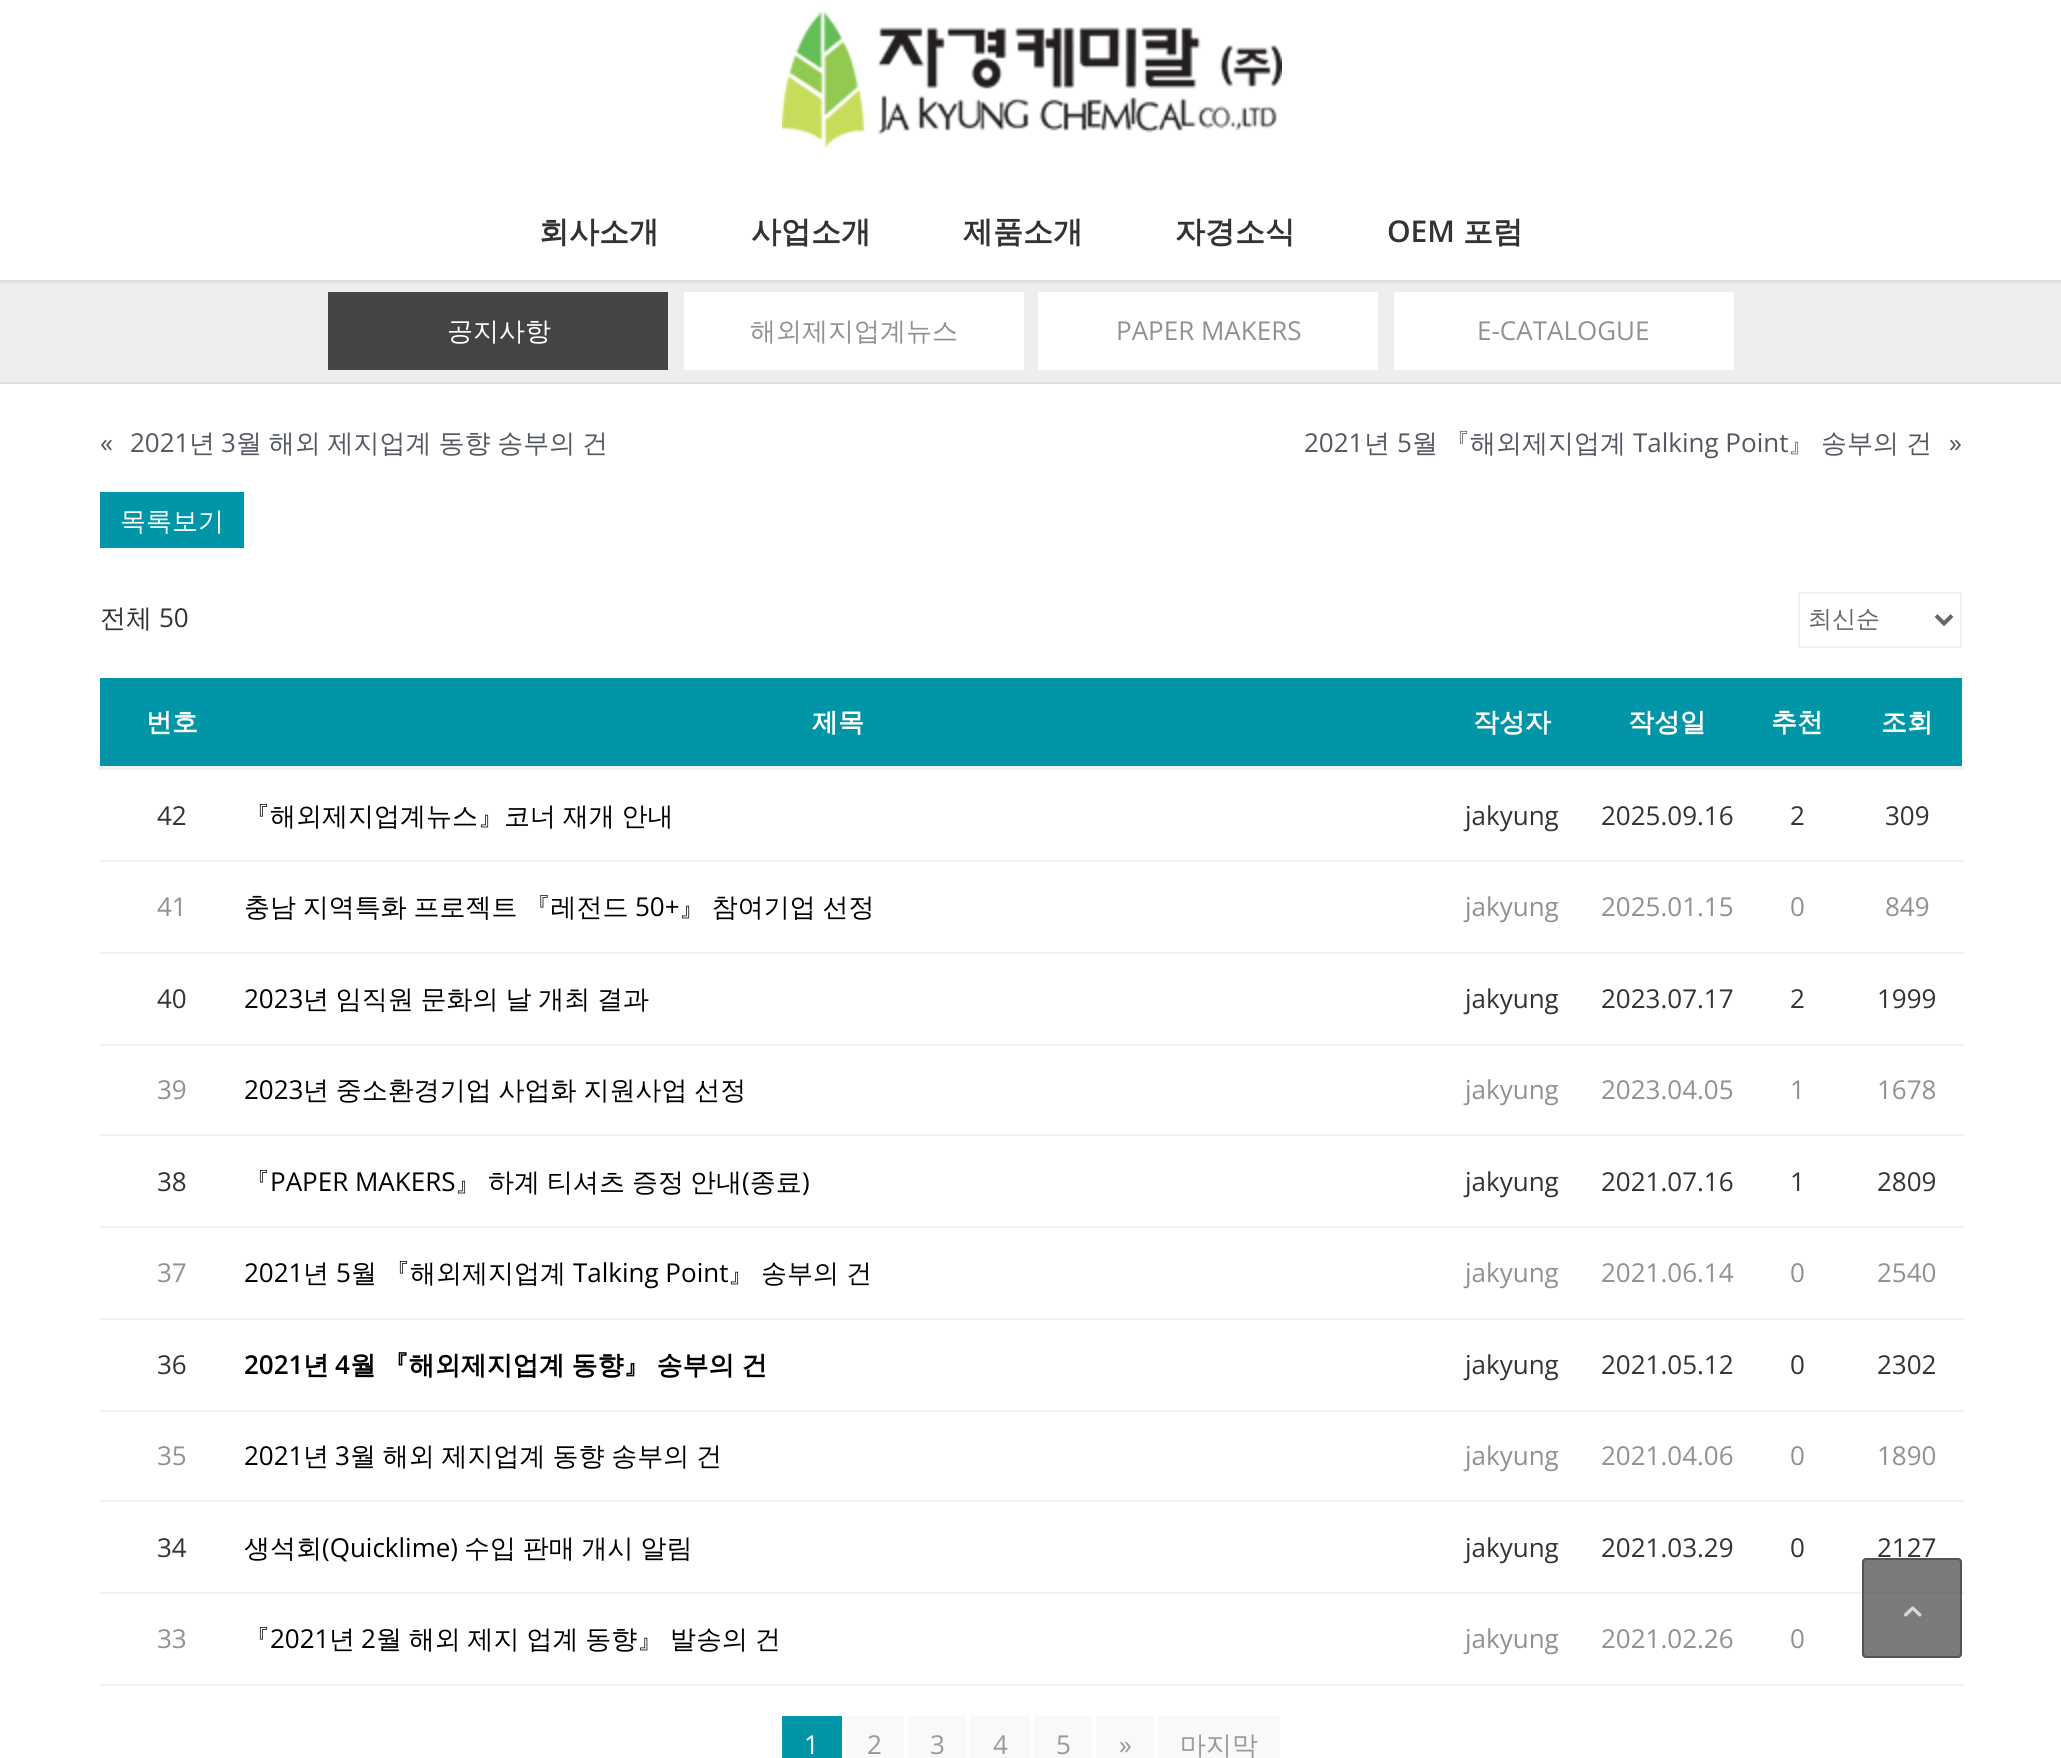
import math
import cairo

surface = cairo.ImageSurface(cairo.Format.RGB24, 2061, 1758)
ctx = cairo.Context(surface)
options = cairo.FontOptions()
options.set_hint_metrics(cairo.HintMetrics.OFF)
options.set_hint_style(cairo.HintStyle.NONE)
ctx.set_font_options(options)
ctx.set_miter_limit(4)


def ink(r, g, b):
    ctx.set_source_rgb(r / 255, g / 255, b / 255)


def write(x, y, s, family, size, color, bold=False, italic=False):
    ctx.select_font_face(family, cairo.FontSlant.ITALIC if italic else cairo.FontSlant.NORMAL, cairo.FontWeight.BOLD if bold else cairo.FontWeight.NORMAL)
    ctx.set_font_size(size)
    ink(*color)
    ctx.move_to(x, y)
    ctx.show_text(s)


def write_spaced(x, y, s, letter, word):
    ctx.move_to(x, y)
    for ch in s:
        ctx.show_text(ch)
        ctx.rel_move_to(letter + word * (ch == ' '), 0)


def block(x, y, w, h, *color):
    ink(*color)
    ctx.rectangle(x, y, w, h)
    ctx.fill()


def round_path(x, y, w, h, r):
    ctx.new_sub_path()
    for i, (u, v) in enumerate([(x + w - r, y + h - r), (x + r, y + h - r), (x + r, y + r), (x + w - r, y + r)]):
        ctx.arc(u, v, r, i * math.pi / 2, (i + 1) * math.pi / 2)
    ctx.close_path()


def blur_box(x, y, w, h, r, blur, alpha):
    ctx.push_group_with_content(cairo.Content.ALPHA)
    ctx.set_operator(cairo.Operator.SOURCE)
    for i in range(15, -16, -2):
        e = blur * i / 6
        if min(w, h) + 2 * e > 0:
            ctx.set_source_rgba(0, 0, 0, alpha * math.erfc((i - 1) / 8.5) / 2)
            round_path(x - e, y - e, w + 2 * e, h + 2 * e, max(0, min(r + e + blur * .6, min(w, h) / 2 + e)))
            ctx.fill()
    ctx.mask(ctx.pop_group())


def paste(path, x, y, w, h):
    ctx.save()
    ctx.set_source_surface(cairo.ImageSurface.create_from_png(path), x, y)
    ctx.rectangle(x, y, w, h)
    ctx.fill()
    ctx.restore()


s1 = dict(family="WenQuanYi Zen Hei", size=30, color=(51, 51, 51), bold=True)
s2 = dict(family="Open Sans SemiBold", size=30, color=(51, 51, 51))
s3 = dict(family="WenQuanYi Zen Hei Medium", size=26, color=(255, 255, 255))
s4 = dict(family="WenQuanYi Zen Hei Medium", size=26, color=(145, 145, 145))
s5 = dict(family="Open Sans", size=26, color=(145, 145, 145))
s6 = dict(family="Open Sans", size=26, color=(84, 88, 97))
s7 = dict(family="WenQuanYi Zen Hei Medium", size=26, color=(84, 88, 97))
s8 = dict(family="WenQuanYi Zen Hei Medium", size=26, color=(51, 51, 51))
s9 = dict(family="Open Sans", size=26, color=(51, 51, 51))
s10 = dict(family="WenQuanYi Zen Hei Medium", size=24, color=(102, 102, 102))
s11 = dict(family="WenQuanYi Zen Hei", size=26, color=(255, 255, 255), bold=True)
s12 = dict(family="Open Sans", size=26, color=(0, 0, 0))
s13 = dict(family="WenQuanYi Zen Hei Medium", size=26, color=(0, 0, 0))
s14 = dict(family="Open Sans SemiBold", size=26, color=(0, 0, 0))
s15 = dict(family="WenQuanYi Zen Hei", size=26, color=(0, 0, 0), bold=True)
s16 = dict(family="Open Sans", size=26, color=(255, 255, 255))
s17 = dict(family="Open Sans", size=26, color=(153, 153, 153))
s18 = dict(family="WenQuanYi Zen Hei Medium", size=26, color=(153, 153, 153))

ink(255, 255, 255)
ctx.paint()
block(0, 280, 2061, 102, 238, 238, 238)
ink(0, 0, 0)
blur_box(-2, -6, 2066, 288, 0, 2, 0.1)
block(0, 0, 2061, 280, 255, 255, 255)
paste("pic1.png", 782, 11, 500, 138)
write(539, 242, "회사소개", **s1)
write(751, 242, "사업소개", **s1)
write(963, 242, "제품소개", **s1)
write(1175, 242, "자경소식", **s1)
write(1387, 242, "OEM", **s2)
write(1463, 242, "포럼", **s1)
block(0, 382, 2061, 2, 225, 225, 225)
block(328, 292, 340, 78, 68, 68, 68)
write(447, 340, "공지사항", **s3)
block(684, 292, 340, 78, 255, 255, 255)
write(750, 340, "해외제지업계뉴스", **s4)
block(1038, 292, 340, 78, 255, 255, 255)
write(1116, 340, "PAPER MAKERS", **s5)
block(1394, 292, 340, 78, 255, 255, 255)
write(1477, 340, "E-CATALOGUE", **s5)
write(100, 452, "«", **s6)
write(130, 452, "2021", **s6)
write(189, 452, "년", **s7)
write(221, 452, "3", **s6)
ctx.select_font_face("WenQuanYi Zen Hei Medium")
write_spaced(236, 452, "월 해외 제지업계 동향 송부의 건", 0, -1)
write(1304, 452, "2021", **s6)
write(1364, 452, "년", **s7)
write(1397, 452, "5", **s6)
write(1412, 452, "월", **s7)
write(1444, 452, "『해외제지업계", **s7)
write(1633, 452, "Talking Point", **s6)
write(1788, 452, "』", **s7)
write(1821, 452, "송부의", **s7)
write(1906, 452, "건", **s7)
write(1949, 452, "»", **s6)
block(100, 492, 144, 56, 0, 150, 167)
write(120, 530, "목록보기", **s3)
write(100, 627, "전체", **s8)
write(159, 627, "50", **s9)
ctx.rectangle(1799, 593, 162, 54)
ink(241, 241, 241)
ctx.stroke()
ctx.new_path()
ctx.move_to(1936, 615.5)
ctx.line_to(1944, 623.5)
ctx.line_to(1952, 615.5)
ink(102, 102, 102)
ctx.set_line_width(4)
ctx.stroke()
write(1808, 627, "최신순", **s10)
block(100, 678, 1862, 88, 0, 150, 167)
write(146, 731, "번호", **s11)
write(812, 731, "제목", **s11)
write(1473, 731, "작성자", **s11)
write(1628, 731, "작성일", **s11)
write(1771, 731, "추천", **s11)
block(98, 766, 1866, 4, 241, 241, 241)
write(1881, 731, "조회", **s11)
write(157, 825, "42", **s9)
ctx.select_font_face("WenQuanYi Zen Hei Medium")
ink(0, 0, 0)
write_spaced(244, 825, "『해외제지업계뉴스』코너 재개 안내", 0, -1)
write(1465, 825, "jakyung", **s9)
write(1601, 825, "2025.09.16", **s9)
write(1790, 825, "2", **s9)
block(100, 860, 1864, 2, 241, 241, 241)
write(1885, 825, "309", **s9)
write(157, 916, "41", **s5)
ctx.select_font_face("WenQuanYi Zen Hei Medium")
ink(0, 0, 0)
write_spaced(244, 916, "충남 지역특화 프로젝트 『레전드", 0, -1)
write(635, 916, "50+", **s12)
ctx.select_font_face("WenQuanYi Zen Hei Medium")
write_spaced(679, 916, "』 참여기업 선정", 0, -1)
write(1465, 916, "jakyung", **s5)
write(1601, 916, "2025.01.15", **s5)
write(1790, 916, "0", **s5)
block(100, 952, 1864, 2, 241, 241, 241)
write(1885, 916, "849", **s5)
write(157, 1008, "40", **s9)
write(244, 1008, "2023", **s12)
ctx.select_font_face("WenQuanYi Zen Hei Medium")
write_spaced(303, 1008, "년 임직원 문화의 날 개최 결과", 0, -1)
write(1465, 1008, "jakyung", **s9)
write(1601, 1008, "2023.07.17", **s9)
write(1790, 1008, "2", **s9)
block(100, 1044, 1864, 2, 241, 241, 241)
write(1877, 1008, "1999", **s9)
write(157, 1099, "39", **s5)
write(244, 1099, "2023", **s12)
ctx.select_font_face("WenQuanYi Zen Hei Medium")
write_spaced(303, 1099, "년 중소환경기업 사업화 지원사업 선정", 0, -1)
write(1465, 1099, "jakyung", **s5)
write(1601, 1099, "2023.04.05", **s5)
write(1790, 1099, "1", **s5)
block(100, 1134, 1864, 2, 241, 241, 241)
write(1877, 1099, "1678", **s5)
write(157, 1191, "38", **s9)
write(244, 1191, "『", **s13)
write(270, 1191, "PAPER MAKERS", **s12)
write(488, 1191, "하계", **s13)
write(547, 1191, "티셔츠", **s13)
write(632, 1191, "증정", **s13)
write(690, 1191, "안내 종료", **s13)
write(455, 1191, "』", **s13)
write(742, 1191, "(", **s12)
write(802, 1191, ")", **s12)
write(1465, 1191, "jakyung", **s9)
write(1601, 1191, "2021.07.16", **s9)
write(1790, 1191, "1", **s9)
block(100, 1226, 1864, 2, 241, 241, 241)
write(1877, 1191, "2809", **s9)
write(157, 1282, "37", **s5)
write(244, 1282, "2021", **s12)
write(303, 1282, "년", **s13)
write(336, 1282, "5", **s12)
write(351, 1282, "월", **s13)
write(384, 1282, "『해외제지업계", **s13)
write(573, 1282, "Talking Point", **s12)
write(728, 1282, "』", **s13)
write(761, 1282, "송부의", **s13)
write(846, 1282, "건", **s13)
write(1465, 1282, "jakyung", **s5)
write(1601, 1282, "2021.06.14", **s5)
write(1790, 1282, "0", **s5)
block(100, 1318, 1864, 2, 241, 241, 241)
write(1877, 1282, "2540", **s5)
write(157, 1374, "36", **s9)
write(244, 1374, "2021", **s14)
write(303, 1374, "년", **s15)
write(335, 1374, "4", **s14)
ctx.select_font_face("WenQuanYi Zen Hei", cairo.FontSlant.NORMAL, cairo.FontWeight.BOLD)
write_spaced(350, 1374, "월 『해외제지업계 동향』 송부의 건", 0, -1)
write(1465, 1374, "jakyung", **s9)
write(1601, 1374, "2021.05.12", **s9)
write(1790, 1374, "0", **s9)
block(100, 1410, 1864, 2, 241, 241, 241)
write(1877, 1374, "2302", **s9)
write(157, 1465, "35", **s5)
write(244, 1465, "2021", **s12)
write(303, 1465, "년", **s13)
write(335, 1465, "3", **s12)
ctx.select_font_face("WenQuanYi Zen Hei Medium")
write_spaced(350, 1465, "월 해외 제지업계 동향 송부의 건", 0, -1)
write(1465, 1465, "jakyung", **s5)
write(1601, 1465, "2021.04.06", **s5)
write(1790, 1465, "0", **s5)
block(100, 1500, 1864, 2, 241, 241, 241)
write(1877, 1465, "1890", **s5)
write(157, 1557, "34", **s9)
write(244, 1557, "생석회", **s13)
write(322, 1557, "(Quicklime)", **s12)
ctx.select_font_face("WenQuanYi Zen Hei Medium")
write_spaced(464, 1557, "수입 판매 개시 알림", 0, -1)
write(1465, 1557, "jakyung", **s9)
write(1601, 1557, "2021.03.29", **s9)
write(1790, 1557, "0", **s9)
block(100, 1592, 1864, 2, 241, 241, 241)
write(1877, 1557, "2127", **s9)
write(157, 1648, "33", **s5)
write(244, 1648, "『", **s13)
write(270, 1648, "2021", **s12)
write(329, 1648, "년", **s13)
write(361, 1648, "2", **s12)
ctx.select_font_face("WenQuanYi Zen Hei Medium")
write_spaced(376, 1648, "월 해외 제지 업계 동향』 발송의 건", 0, -1)
write(1465, 1648, "jakyung", **s5)
write(1601, 1648, "2021.02.26", **s5)
write(1790, 1648, "0", **s5)
block(100, 1684, 1864, 2, 241, 241, 241)
block(782, 1716, 60, 42, 0, 150, 167)
write(804, 1754, "1", **s16)
block(846, 1716, 58, 42, 249, 249, 249)
write(867, 1754, "2", **s17)
block(908, 1716, 58, 42, 249, 249, 249)
write(930, 1754, "3", **s17)
block(970, 1716, 60, 42, 249, 249, 249)
write(993, 1754, "4", **s17)
block(1034, 1716, 58, 42, 249, 249, 249)
write(1056, 1754, "5", **s17)
block(1096, 1716, 58, 42, 249, 249, 249)
write(1119, 1754, "»", **s17)
block(1158, 1716, 122, 42, 249, 249, 249)
write(1180, 1754, "마지막", **s18)
ctx.set_source_rgba(0.267, 0.267, 0.267, 0.7)
round_path(1862, 1558, 100, 100, 4)
ctx.fill()
round_path(1863, 1559, 98, 98, 3)
ctx.set_line_width(2)
ctx.stroke()
paste("pic2.png", 1904, 1606, 18, 11)
surface.write_to_png("screenshot.png")
